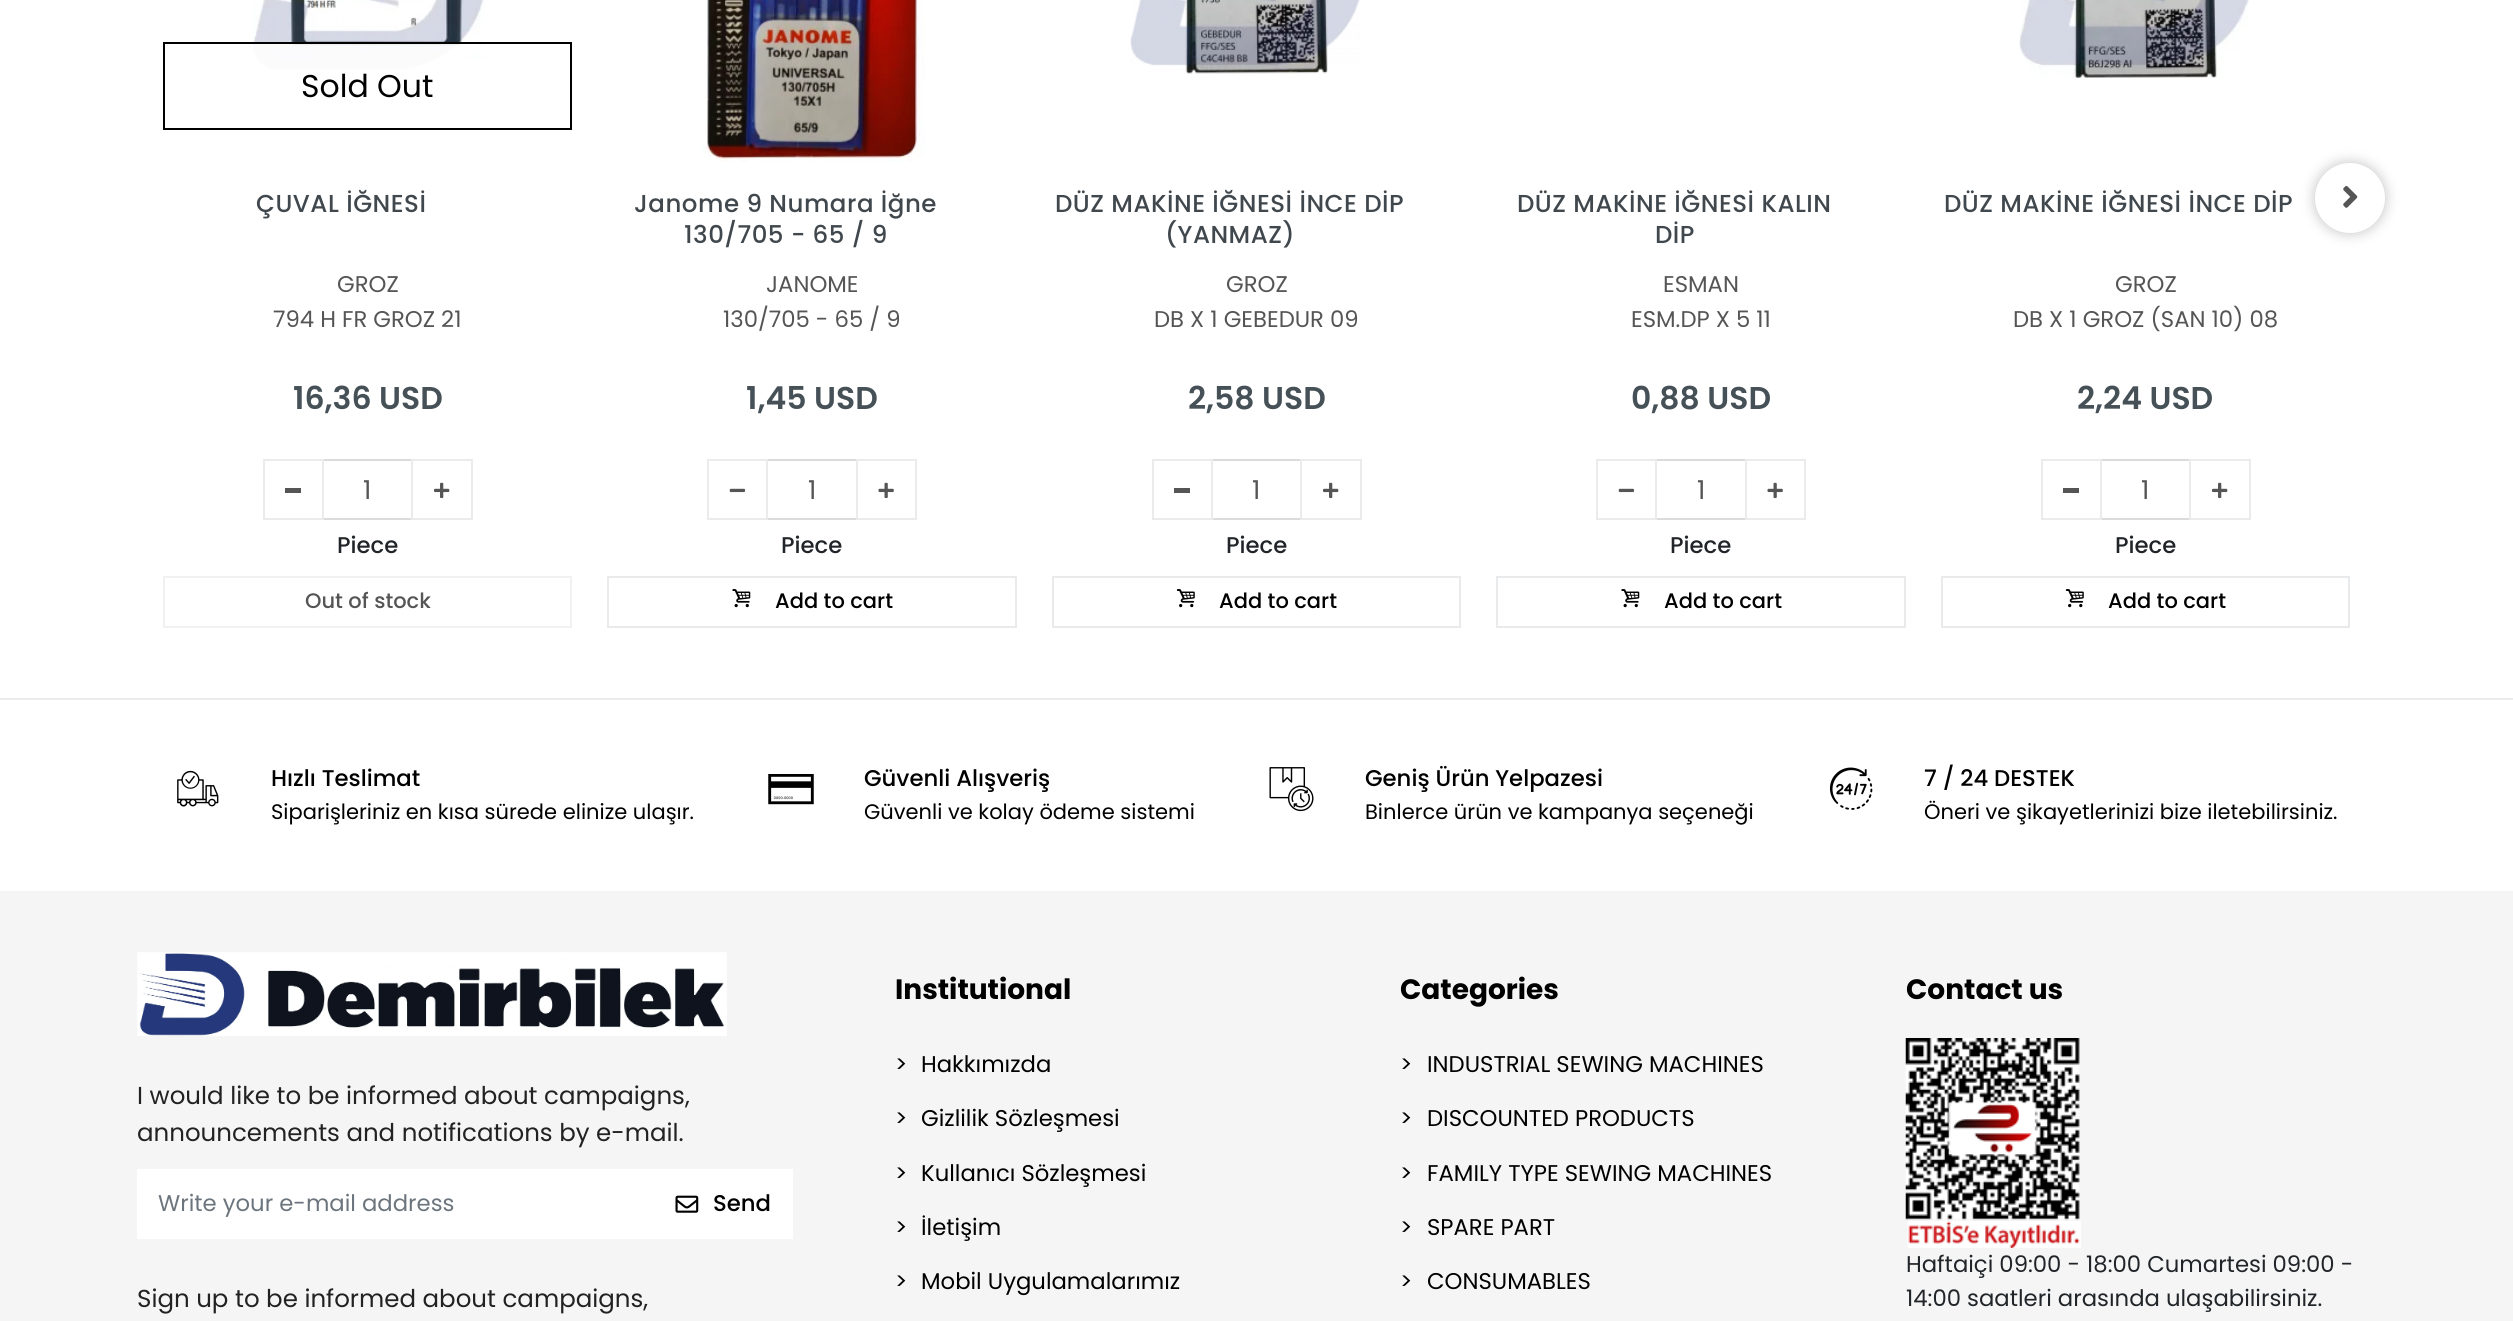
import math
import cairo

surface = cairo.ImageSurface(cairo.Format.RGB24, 2513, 1321)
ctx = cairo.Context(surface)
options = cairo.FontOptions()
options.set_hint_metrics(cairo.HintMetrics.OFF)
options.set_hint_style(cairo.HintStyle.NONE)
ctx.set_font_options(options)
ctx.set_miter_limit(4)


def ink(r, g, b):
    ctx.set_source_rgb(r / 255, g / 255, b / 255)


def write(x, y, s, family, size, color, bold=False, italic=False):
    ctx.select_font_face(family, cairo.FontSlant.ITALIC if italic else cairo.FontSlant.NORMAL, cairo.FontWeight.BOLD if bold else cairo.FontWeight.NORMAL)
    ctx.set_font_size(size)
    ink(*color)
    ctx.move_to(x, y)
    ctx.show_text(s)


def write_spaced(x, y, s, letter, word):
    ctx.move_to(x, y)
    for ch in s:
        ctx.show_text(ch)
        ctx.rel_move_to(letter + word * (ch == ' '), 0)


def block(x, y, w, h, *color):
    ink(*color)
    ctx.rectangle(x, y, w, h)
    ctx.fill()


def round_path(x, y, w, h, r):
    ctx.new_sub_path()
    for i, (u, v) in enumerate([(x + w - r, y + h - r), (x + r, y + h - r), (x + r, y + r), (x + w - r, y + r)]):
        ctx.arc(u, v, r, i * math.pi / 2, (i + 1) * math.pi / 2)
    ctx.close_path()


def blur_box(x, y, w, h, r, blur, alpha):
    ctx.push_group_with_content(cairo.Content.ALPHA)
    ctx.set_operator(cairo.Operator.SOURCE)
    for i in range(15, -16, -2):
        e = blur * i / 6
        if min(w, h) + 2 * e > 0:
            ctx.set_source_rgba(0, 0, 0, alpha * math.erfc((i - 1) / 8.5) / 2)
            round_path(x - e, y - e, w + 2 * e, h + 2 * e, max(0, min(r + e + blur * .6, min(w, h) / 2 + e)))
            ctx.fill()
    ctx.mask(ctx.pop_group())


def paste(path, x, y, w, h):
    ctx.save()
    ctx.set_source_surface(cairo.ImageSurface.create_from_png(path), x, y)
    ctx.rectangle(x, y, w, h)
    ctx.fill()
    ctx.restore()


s1 = dict(family="Poppins", size=31.5, color=(0, 0, 0))
s2 = dict(family="Poppins", size=22.75, color=(85, 85, 85))
s3 = dict(family="Poppins SemiBold", size=31.5, color=(70, 81, 87))
s4 = dict(family="Poppins", size=26, color=(85, 85, 85))
s5 = dict(family="Poppins Medium", size=22.75, color=(33, 37, 41))
s6 = dict(family="Poppins Medium", size=21, color=(85, 85, 85))
s7 = dict(family="Poppins Medium", size=21, color=(0, 0, 0))
s8 = dict(family="Poppins Medium", size=22.75, color=(0, 0, 0))
s9 = dict(family="Poppins", size=21, color=(0, 0, 0))
s10 = dict(family="Poppins", size=24.5, color=(34, 34, 34))
s11 = dict(family="Poppins", size=22.75, color=(108, 117, 125))
s12 = dict(family="Poppins", size=28, color=(0, 0, 0), bold=True)
s13 = dict(family="Poppins", size=22.75, color=(0, 0, 0))
s14 = dict(family="Poppins", size=22.75, color=(33, 37, 41))

ink(255, 255, 255)
ctx.paint()
paste("pic1.png", 252, 0, 233, 71)
ctx.set_source_rgba(1, 1, 1, 0.9)
ctx.rectangle(252, 44, 211, 27)
ctx.fill()
ctx.rectangle(164, 43, 407, 86)
ink(0, 0, 0)
ctx.stroke()
write(301, 97, "Sold Out", **s1)
ctx.select_font_face("Poppins Medium")
ctx.set_font_size(24.5)
ink(64, 72, 78)
write_spaced(256, 212, "ÇUVAL İĞNESİ", 0.5, 0)
write(337, 292, "GROZ", **s2)
write(273, 327, "794 H FR GROZ 21", **s2)
write(293, 409, "16,36 USD", **s3)
ctx.rectangle(264, 460, 59, 59)
ink(235, 235, 235)
ctx.stroke()
block(285, 488, 16, 5, 85, 85, 85)
block(324, 459, 87, 2, 219, 219, 219)
block(324, 518, 87, 2, 219, 219, 219)
write(363, 499, "1", **s4)
ctx.rectangle(412, 460, 60, 59)
ink(235, 235, 235)
ctx.stroke()
paste("pic2.png", 434, 482, 16, 17)
write(337, 553, "Piece", **s5)
ctx.rectangle(164, 577, 407, 50)
ink(241, 241, 243)
ctx.stroke()
write(305, 608, "Out of stock", **s6)
paste("pic3.png", 702, 0, 223, 162)
ctx.set_font_size(24.5)
ink(64, 72, 78)
write_spaced(634, 212, "Janome 9 Numara İğne", 0.5, 0)
write_spaced(684, 243, "130/705 - 65 / 9", 0.5, 0)
write(766, 292, "JANOME", **s2)
write(723, 327, "130/705 - 65 / 9", **s2)
write(746, 409, "1,45 USD", **s3)
ctx.rectangle(708, 460, 59, 59)
ink(235, 235, 235)
ctx.stroke()
paste("pic4.png", 729, 488, 17, 5)
block(768, 459, 88, 2, 219, 219, 219)
block(768, 518, 88, 2, 219, 219, 219)
write(808, 499, "1", **s4)
ctx.rectangle(857, 460, 59, 59)
ink(235, 235, 235)
ctx.stroke()
paste("pic5.png", 878, 482, 16, 17)
write(781, 553, "Piece", **s5)
ctx.rectangle(608, 577, 408, 50)
ink(233, 234, 236)
ctx.stroke()
paste("pic6.png", 732, 589, 19, 19)
write(775, 608, "Add to cart", **s7)
paste("pic7.png", 1130, 0, 230, 74)
ctx.set_font_size(24.5)
ink(64, 72, 78)
write_spaced(1055, 212, "DÜZ MAKİNE İĞNESİ İNCE DİP", 0.5, 0)
write_spaced(1165, 243, "(YANMAZ)", 0.5, 0)
write(1226, 292, "GROZ", **s2)
write(1154, 327, "DB X 1 GEBEDUR 09", **s2)
write(1188, 409, "2,58 USD", **s3)
ctx.rectangle(1153, 460, 59, 59)
ink(235, 235, 235)
ctx.stroke()
block(1174, 488, 16, 5, 85, 85, 85)
block(1213, 459, 87, 2, 219, 219, 219)
block(1213, 518, 87, 2, 219, 219, 219)
write(1252, 499, "1", **s4)
ctx.rectangle(1301, 460, 60, 59)
ink(235, 235, 235)
ctx.stroke()
paste("pic2.png", 1323, 482, 16, 17)
write(1226, 553, "Piece", **s5)
ctx.rectangle(1053, 577, 407, 50)
ink(233, 234, 236)
ctx.stroke()
paste("pic8.png", 1176, 589, 19, 19)
write(1219, 608, "Add to cart", **s7)
ctx.set_font_size(24.5)
ink(64, 72, 78)
write_spaced(1517, 212, "DÜZ MAKİNE İĞNESİ KALIN", 0.5, 0)
write_spaced(1655, 243, "DİP", 0.5, 0)
write(1663, 292, "ESMAN", **s2)
write(1631, 327, "ESM.DP X 5 11", **s2)
write(1631, 409, "0,88 USD", **s3)
ctx.rectangle(1597, 460, 59, 59)
ink(235, 235, 235)
ctx.stroke()
paste("pic4.png", 1618, 488, 17, 5)
block(1657, 459, 88, 2, 219, 219, 219)
block(1657, 518, 88, 2, 219, 219, 219)
write(1697, 499, "1", **s4)
ctx.rectangle(1746, 460, 59, 59)
ink(235, 235, 235)
ctx.stroke()
paste("pic5.png", 1767, 482, 16, 17)
write(1670, 553, "Piece", **s5)
ctx.rectangle(1497, 577, 408, 50)
ink(233, 234, 236)
ctx.stroke()
paste("pic6.png", 1621, 589, 19, 19)
write(1664, 608, "Add to cart", **s7)
paste("pic9.png", 2019, 0, 230, 78)
ctx.set_font_size(24.5)
ink(64, 72, 78)
write_spaced(1944, 212, "DÜZ MAKİNE İĞNESİ İNCE DİP", 0.5, 0)
write(2115, 292, "GROZ", **s2)
write(2013, 327, "DB X 1 GROZ (SAN 10) 08", **s2)
write(2077, 409, "2,24 USD", **s3)
ctx.rectangle(2042, 460, 59, 59)
ink(235, 235, 235)
ctx.stroke()
block(2063, 488, 16, 5, 85, 85, 85)
block(2102, 459, 87, 2, 219, 219, 219)
block(2102, 518, 87, 2, 219, 219, 219)
write(2141, 499, "1", **s4)
ctx.rectangle(2190, 460, 60, 59)
ink(235, 235, 235)
ctx.stroke()
paste("pic2.png", 2212, 482, 16, 17)
write(2115, 553, "Piece", **s5)
ctx.rectangle(1942, 577, 407, 50)
ink(233, 234, 236)
ctx.stroke()
paste("pic8.png", 2065, 589, 19, 19)
write(2108, 608, "Add to cart", **s7)
ink(0, 0, 0)
blur_box(2315, 163, 70, 70, 35, 7, 0.24)
ink(255, 255, 255)
ctx.arc(2350, 198, 35, 0, 2 * math.pi)
ctx.fill()
paste("pic10.png", 2343, 186, 15, 22)
block(0, 698, 2513, 2, 235, 235, 235)
paste("pic11.png", 177, 770, 42, 37)
write(271, 786, "Hızlı Teslimat", **s8)
write(271, 819, "Siparişleriniz en kısa sürede elinize ulaşır.", **s9)
paste("pic12.png", 768, 774, 46, 31)
write(864, 786, "Güvenli Alışveriş", **s8)
write(864, 819, "Güvenli ve kolay ödeme sistemi", **s9)
paste("pic13.png", 1269, 767, 45, 45)
write(1365, 786, "Geniş Ürün Yelpazesi", **s8)
write(1365, 819, "Binlerce ürün ve kampanya seçeneği", **s9)
paste("pic14.png", 1829, 767, 44, 43)
write(1924, 786, "7 / 24 DESTEK", **s8)
write(1924, 819, "Öneri ve şikayetlerinizi bize iletebilirsiniz.", **s9)
block(0, 891, 2513, 430, 245, 245, 245)
paste("pic15.png", 137, 952, 590, 84)
write(137, 1104, "I would like to be informed about campaigns,", **s10)
write(137, 1141, "announcements and notifications by e-mail.", **s10)
block(137, 1169, 656, 70, 255, 255, 255)
write(158, 1211, "Write your e-mail address", **s11)
paste("pic16.png", 675, 1195, 24, 18)
write(713, 1211, "Send", **s8)
write(137, 1307, "Sign up to be informed about campaigns,", **s10)
write(895, 999, "Institutional", **s12)
write(895, 1072, ">", **s13)
write(921, 1072, "Hakkımızda", **s13)
write(895, 1126, ">", **s13)
write(921, 1126, "Gizlilik Sözleşmesi", **s13)
write(895, 1181, ">", **s13)
write(921, 1181, "Kullanıcı Sözleşmesi", **s13)
write(895, 1235, ">", **s13)
write(921, 1235, "İletişim", **s13)
write(895, 1289, ">", **s13)
write(921, 1289, "Mobil Uygulamalarımız", **s13)
write(1400, 999, "Categories", **s12)
write(1400, 1072, ">", **s13)
write(1427, 1072, "INDUSTRIAL SEWING MACHINES", **s13)
write(1400, 1126, ">", **s13)
write(1427, 1126, "DISCOUNTED PRODUCTS", **s13)
write(1400, 1181, ">", **s13)
write(1427, 1181, "FAMILY TYPE SEWING MACHINES", **s13)
write(1400, 1235, ">", **s13)
write(1427, 1235, "SPARE PART", **s13)
write(1400, 1289, ">", **s13)
write(1427, 1289, "CONSUMABLES", **s13)
write(1906, 999, "Contact us", **s12)
paste("pic17.png", 1905, 1038, 176, 210)
write(1906, 1272, "Haftaiçi 09:00 - 18:00 Cumartesi 09:00 -", **s14)
write(1906, 1306, "14:00 saatleri arasında ulaşabilirsiniz.", **s14)
surface.write_to_png("screenshot.png")
